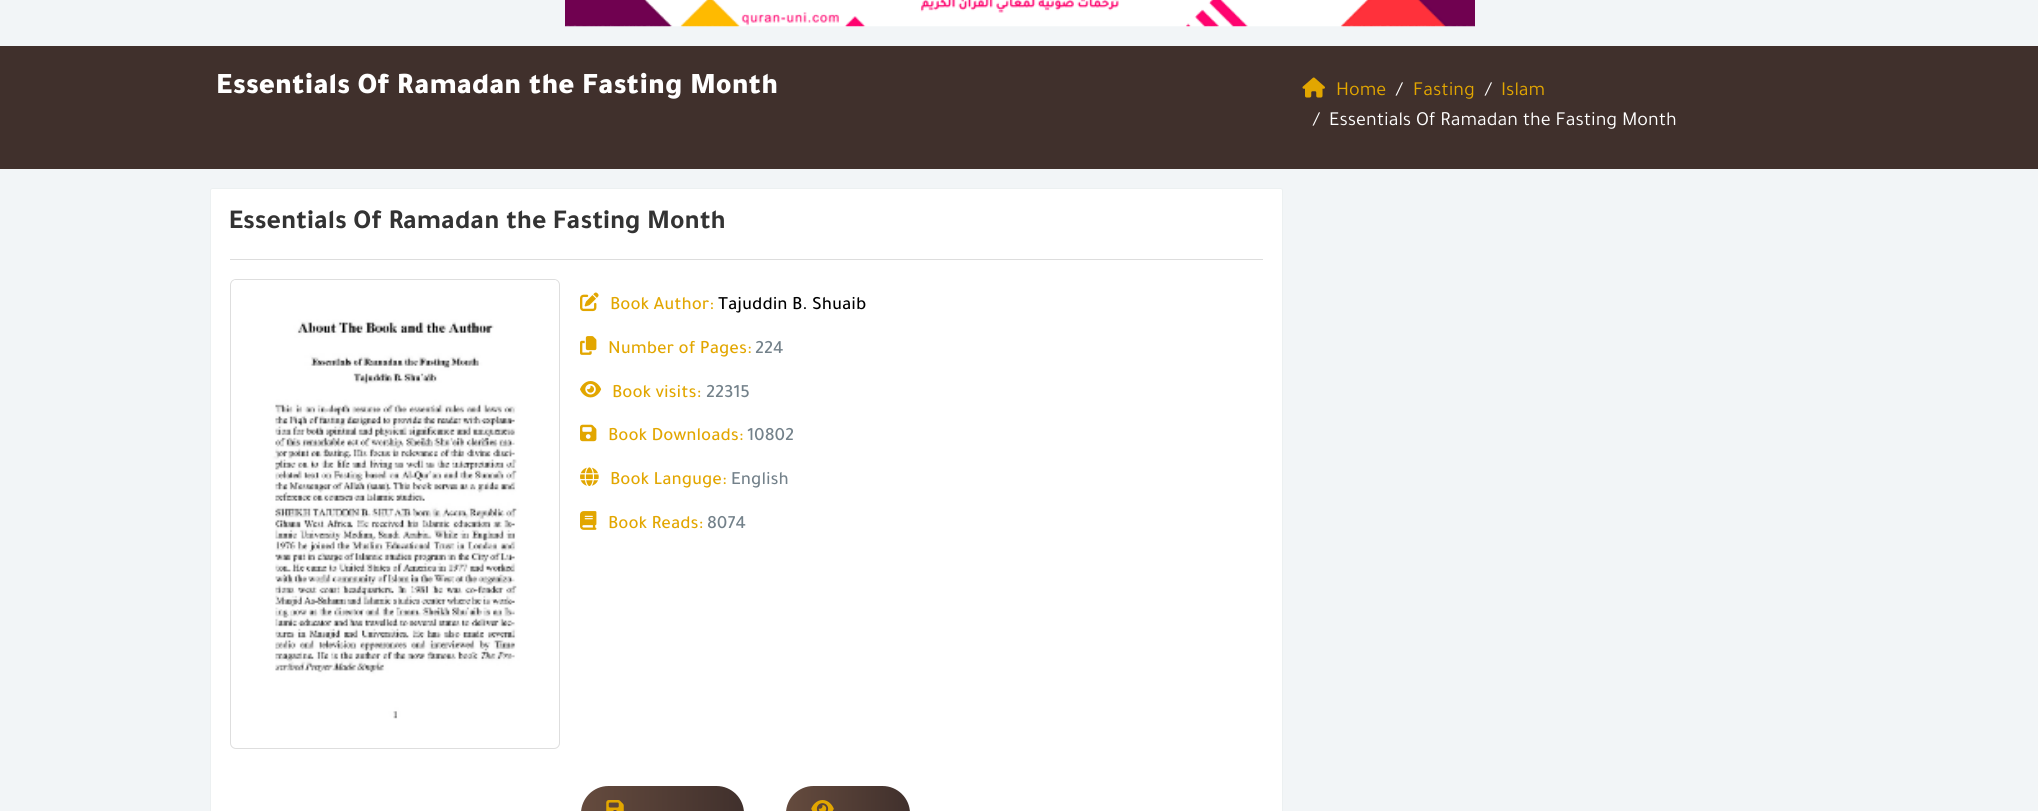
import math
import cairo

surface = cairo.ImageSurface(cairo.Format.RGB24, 2038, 811)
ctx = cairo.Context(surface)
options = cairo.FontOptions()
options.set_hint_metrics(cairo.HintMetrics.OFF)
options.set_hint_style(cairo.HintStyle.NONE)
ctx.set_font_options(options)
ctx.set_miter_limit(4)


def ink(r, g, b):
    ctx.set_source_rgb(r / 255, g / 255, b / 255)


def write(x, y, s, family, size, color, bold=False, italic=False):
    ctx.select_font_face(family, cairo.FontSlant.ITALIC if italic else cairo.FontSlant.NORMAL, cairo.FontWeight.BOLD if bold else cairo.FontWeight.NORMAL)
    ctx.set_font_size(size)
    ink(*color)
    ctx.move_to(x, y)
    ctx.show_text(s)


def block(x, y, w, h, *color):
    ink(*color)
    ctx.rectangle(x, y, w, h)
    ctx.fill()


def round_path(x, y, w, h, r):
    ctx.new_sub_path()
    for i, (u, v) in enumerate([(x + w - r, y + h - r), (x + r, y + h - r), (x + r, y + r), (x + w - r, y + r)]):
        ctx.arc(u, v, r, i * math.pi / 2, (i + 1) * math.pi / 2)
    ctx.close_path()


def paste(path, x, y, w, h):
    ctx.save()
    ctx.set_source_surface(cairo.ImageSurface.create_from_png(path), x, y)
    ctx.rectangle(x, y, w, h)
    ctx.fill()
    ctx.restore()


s1 = dict(family="Tajawal Black", size=30, color=(255, 255, 255))
s2 = dict(family="Tajawal", size=20, color=(226, 166, 0))
s3 = dict(family="Tajawal", size=20, color=(255, 255, 255))
s4 = dict(family="Tajawal", size=27.5, color=(51, 51, 51), bold=True)
s5 = dict(family="Tajawal Medium", size=18.75, color=(226, 166, 0))
s6 = dict(family="Tajawal Medium", size=18.75, color=(0, 0, 0))
s7 = dict(family="Tajawal Medium", size=18.75, color=(115, 129, 138))

ink(242, 245, 247)
ctx.paint()
paste("pic1.png", 565, 0, 910, 27)
block(0, 46, 2038, 123, 64, 48, 44)
write(216, 93, "Essentials Of Ramadan the Fasting Month", **s1)
paste("pic2.png", 1302, 77, 23, 21)
write(1336, 95, "Home", **s2)
write(1396, 95, "/", **s3)
write(1413, 95, "Fasting", **s2)
write(1485, 95, "/", **s3)
write(1501, 95, "Islam", **s2)
write(1313, 125, "/", **s3)
write(1329, 125, "Essentials Of Ramadan the Fasting Month", **s3)
round_path(210.5, 188.5, 1072, 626, 2)
ctx.fill_preserve()
ink(236, 240, 241)
ctx.set_line_width(1)
ctx.stroke()
block(230, 259, 1033, 1, 221, 221, 221)
write(229, 228, "Essentials Of Ramadan the Fasting Month", **s4)
round_path(230.5, 279.5, 329, 469, 5.5)
ink(222, 222, 222)
ctx.stroke()
paste("pic3.png", 232, 280, 326, 439)
paste("pic4.png", 580, 292, 19, 20)
write(610, 309, "Book Author:", **s5)
write(718, 309, "Tajuddin B. Shuaib", **s6)
paste("pic5.png", 580, 336, 17, 19)
write(608, 353, "Number of Pages:", **s5)
write(755, 353, "224", **s7)
paste("pic6.png", 580, 381, 22, 17)
write(612, 397, "Book visits:", **s5)
write(706, 397, "22315", **s7)
paste("pic7.png", 580, 424, 17, 18)
write(608, 440, "Book Downloads:", **s5)
write(747, 440, "10802", **s7)
paste("pic8.png", 580, 467, 19, 20)
write(610, 484, "Book Languge:", **s5)
write(731, 484, "English", **s7)
paste("pic9.png", 580, 511, 17, 19)
write(608, 528, "Book Reads:", **s5)
write(707, 528, "8074", **s7)
gradient = cairo.LinearGradient(581, 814, 744, 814)
gradient.add_color_stop_rgba(0, 0.396, 0.294, 0.243, 1)
gradient.add_color_stop_rgba(1, 0.251, 0.188, 0.173, 1)
ctx.set_source(gradient)
round_path(581, 786, 163, 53, 27.5)
ctx.fill()
paste("pic10.png", 606, 800, 18, 11)
gradient = cairo.LinearGradient(786, 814, 910, 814)
gradient.add_color_stop_rgba(0, 0.396, 0.294, 0.243, 1)
gradient.add_color_stop_rgba(1, 0.251, 0.188, 0.173, 1)
ctx.set_source(gradient)
round_path(786, 786, 124, 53, 27.5)
ctx.fill()
paste("pic11.png", 811, 800, 23, 11)
surface.write_to_png("screenshot.png")
